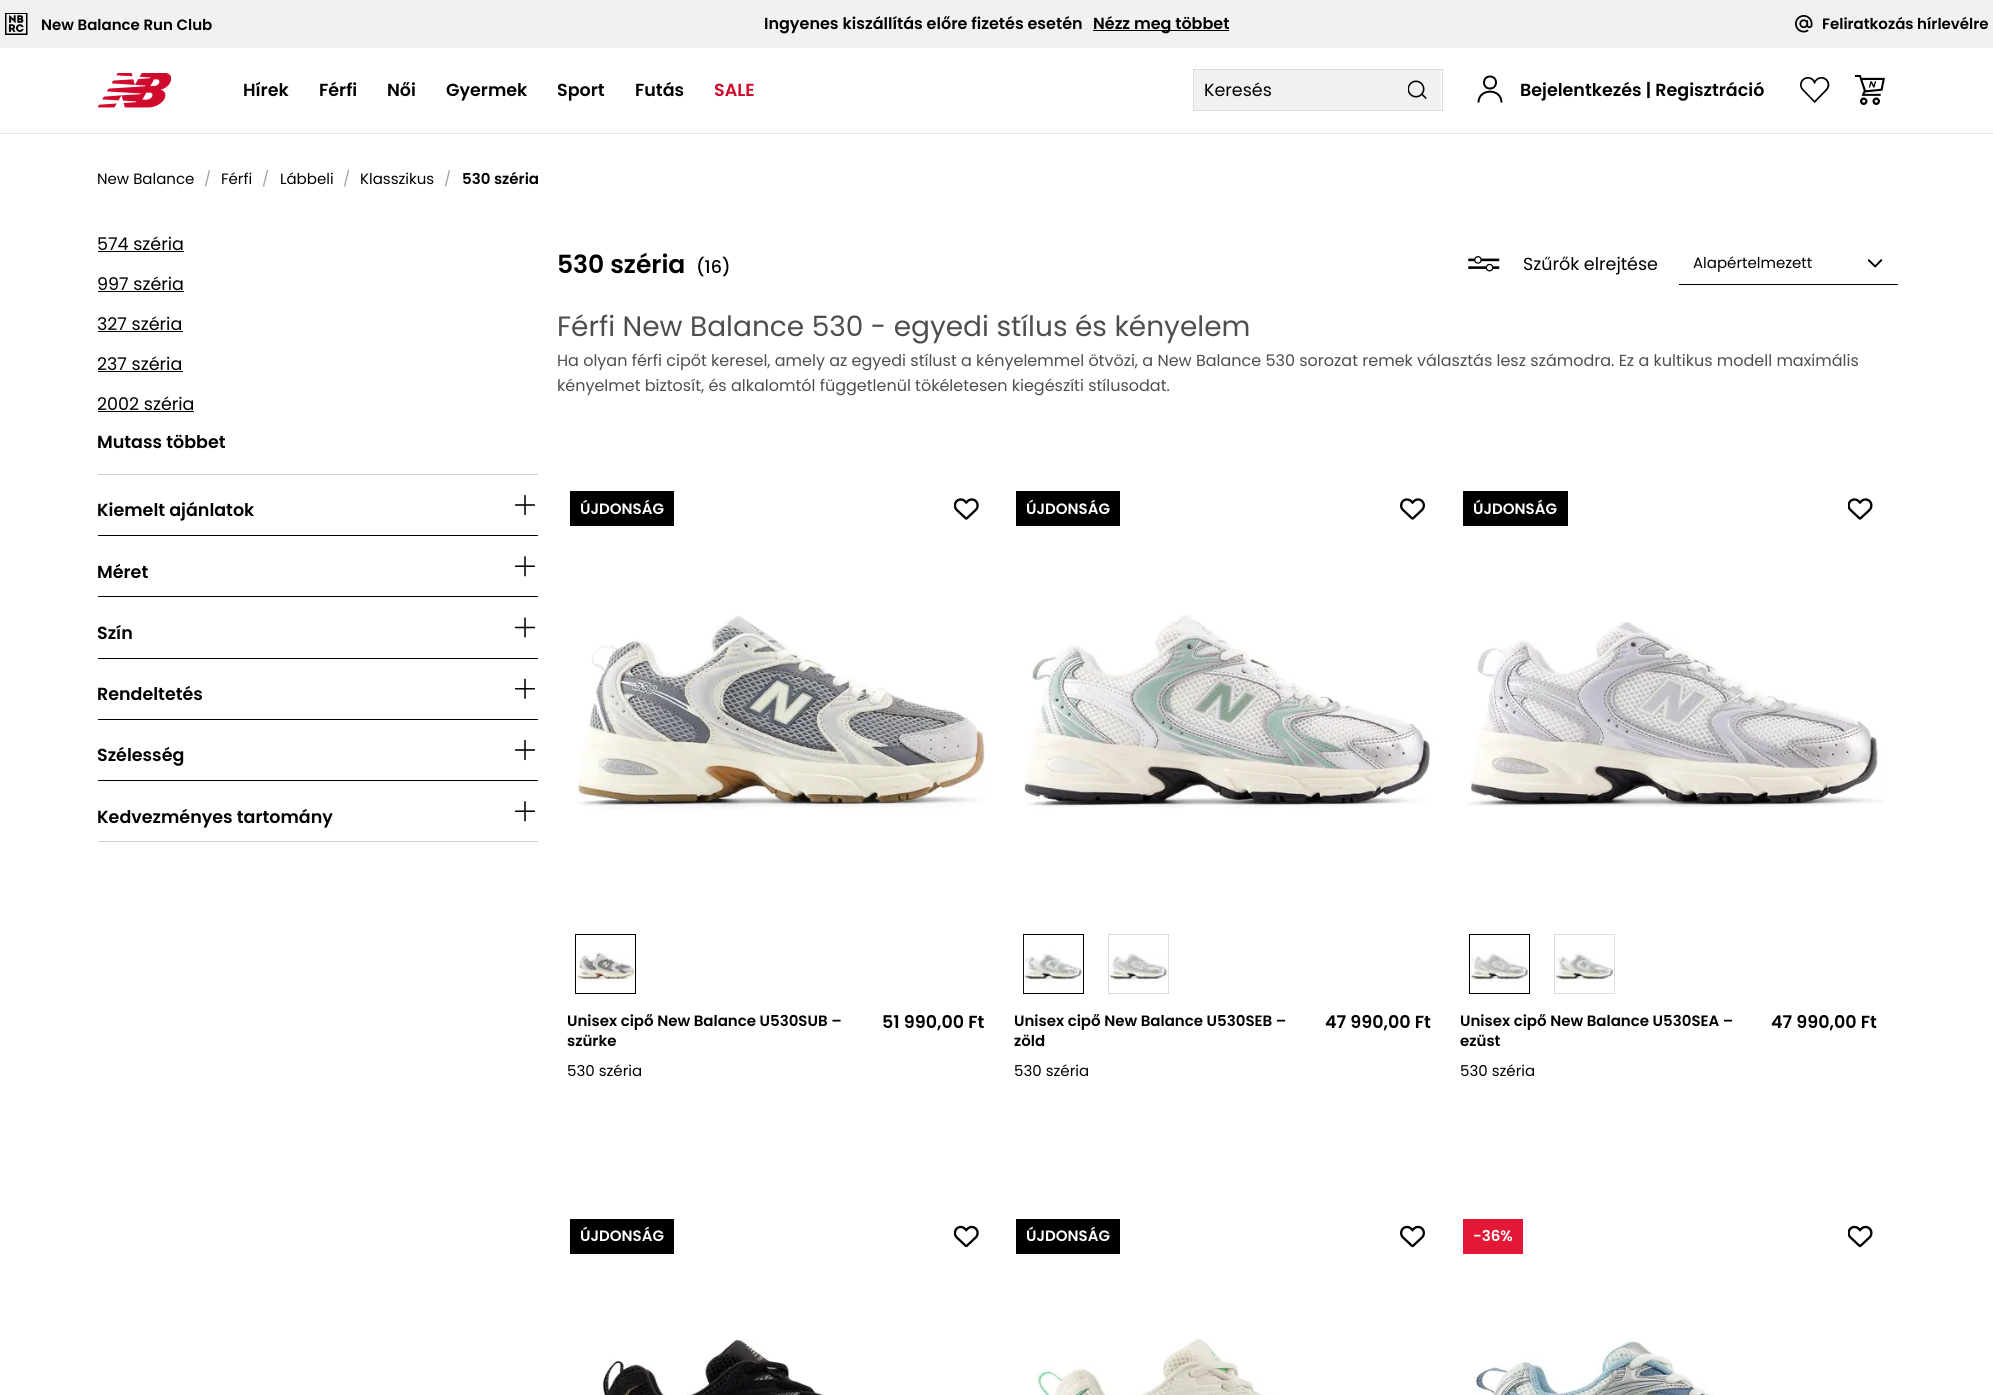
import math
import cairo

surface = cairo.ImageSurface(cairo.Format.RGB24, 1993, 1395)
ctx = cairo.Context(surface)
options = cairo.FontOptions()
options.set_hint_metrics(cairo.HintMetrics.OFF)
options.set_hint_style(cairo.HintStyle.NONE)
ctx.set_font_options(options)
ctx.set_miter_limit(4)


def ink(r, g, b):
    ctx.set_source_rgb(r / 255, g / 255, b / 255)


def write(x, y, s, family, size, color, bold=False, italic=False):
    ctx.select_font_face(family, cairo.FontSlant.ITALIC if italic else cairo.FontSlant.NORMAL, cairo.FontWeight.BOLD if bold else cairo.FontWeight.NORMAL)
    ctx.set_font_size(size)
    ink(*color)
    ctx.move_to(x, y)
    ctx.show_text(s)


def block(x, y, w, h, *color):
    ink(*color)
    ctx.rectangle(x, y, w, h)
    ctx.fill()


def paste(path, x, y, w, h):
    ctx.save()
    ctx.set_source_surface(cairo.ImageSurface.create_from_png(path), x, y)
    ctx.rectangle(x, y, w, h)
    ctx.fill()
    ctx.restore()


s1 = dict(family="Poppins SemiBold", size=15, color=(0, 0, 0))
s2 = dict(family="Poppins SemiBold", size=16, color=(0, 0, 0))
s3 = dict(family="Poppins SemiBold", size=17.5, color=(0, 0, 0))
s4 = dict(family="Poppins SemiBold", size=17.5, color=(207, 10, 44))
s5 = dict(family="Poppins", size=17.5, color=(0, 0, 0))
s6 = dict(family="Poppins", size=15, color=(0, 0, 0))
s7 = dict(family="Poppins", size=15, color=(163, 163, 163))
s8 = dict(family="Poppins SemiBold", size=25, color=(0, 0, 0))
s9 = dict(family="Poppins Medium", size=17.5, color=(0, 0, 0))
s10 = dict(family="Poppins", size=28, color=(78, 78, 78))
s11 = dict(family="Poppins", size=16, color=(78, 78, 78))
s12 = dict(family="Poppins SemiBold", size=15, color=(255, 255, 255))

ink(255, 255, 255)
ctx.paint()
block(0, 0, 1993, 48, 241, 241, 241)
paste("pic1.png", 5, 13, 23, 22)
write(41, 30, "New Balance Run Club", **s1)
write(764, 29, "Ingyenes kiszállítás előre fizetés esetén", **s2)
block(1093, 30, 136, 1, 0, 0, 0)
write(1093, 29, "Nézz meg többet", **s2)
paste("pic2.png", 1795, 15, 18, 18)
write(1822, 29, "Feliratkozás hírlevélre", **s1)
block(0, 133, 1993, 1, 233, 233, 233)
paste("pic3.png", 98, 73, 73, 35)
write(243, 96, "Hírek", **s3)
write(319, 96, "Férfi", **s3)
write(387, 96, "Női", **s3)
write(446, 96, "Gyermek", **s3)
write(557, 96, "Sport", **s3)
write(635, 96, "Futás", **s3)
write(714, 96, "SALE", **s4)
ctx.rectangle(1193.5, 69.5, 249, 41)
ink(220, 220, 220)
ctx.set_line_width(1)
ctx.stroke()
block(1194, 70, 247, 40, 241, 241, 241)
write(1204, 96, "Keresés", **s5)
paste("pic4.png", 1408, 80, 19, 19)
ctx.new_path()
ctx.move_to(1478.5, 102.5)
ctx.curve_to(1478.5, 88, 1501.5, 88, 1501.5, 102.5)
ctx.move_to(1490, 88.5)
ctx.curve_to(1498, 88.5, 1498, 76.5, 1490, 76.5)
ctx.curve_to(1482, 76.5, 1482, 88.5, 1490, 88.5)
ctx.close_path()
ctx.set_line_width(2)
ctx.stroke()
write(1520, 96, "Bejelentkezés | Regisztráció", **s3)
paste("pic5.png", 1800, 77, 30, 26)
paste("pic6.png", 1855, 75, 30, 30)
write(97, 184, "New Balance", **s6)
write(204, 184, "/", **s7)
write(221, 184, "Férfi", **s6)
write(262, 184, "/", **s7)
write(280, 184, "Lábbeli", **s6)
write(343, 184, "/", **s7)
write(360, 184, "Klasszikus", **s6)
write(444, 184, "/", **s7)
write(462, 184, "530 széria", **s1)
write(97, 250, "574 széria", **s5)
block(98, 251, 86, 1, 0, 0, 0)
write(97, 290, "997 széria", **s5)
block(98, 291, 86, 1, 0, 0, 0)
write(97, 330, "327 széria", **s5)
block(98, 331, 85, 1, 0, 0, 0)
write(97, 370, "237 széria", **s5)
block(98, 371, 85, 1, 0, 0, 0)
write(97, 410, "2002 széria", **s5)
block(98, 411, 96, 1, 0, 0, 0)
write(97, 448, "Mutass többet", **s3)
block(98, 474, 440, 1, 206, 206, 206)
block(98, 841, 440, 1, 206, 206, 206)
write(97, 516, "Kiemelt ajánlatok", **s3)
paste("pic7.png", 514, 494, 22, 22)
block(98, 535, 440, 1, 0, 0, 0)
write(97, 578, "Méret", **s3)
paste("pic8.png", 514, 556, 22, 21)
block(98, 596, 440, 1, 0, 0, 0)
write(97, 639, "Szín", **s3)
paste("pic9.png", 514, 617, 22, 21)
block(98, 658, 440, 1, 0, 0, 0)
write(97, 700, "Rendeltetés", **s3)
paste("pic10.png", 514, 678, 22, 21)
block(98, 719, 440, 1, 0, 0, 0)
write(97, 761, "Szélesség", **s3)
paste("pic7.png", 514, 739, 22, 22)
block(98, 780, 440, 1, 0, 0, 0)
write(97, 823, "Kedvezményes tartomány", **s3)
paste("pic8.png", 514, 801, 22, 21)
write(557, 273, "530 széria", **s8)
write(696, 273, "(16)", **s9)
paste("pic11.png", 1468, 256, 32, 16)
write(1523, 270, "Szűrők elrejtése", **s5)
paste("pic12.png", 1868, 259, 15, 9)
block(1679, 284, 219, 1, 0, 0, 0)
write(1693, 268, "Alapértelmezett", **s6)
write(557, 336, "Férfi New Balance 530 - egyedi stílus és kényelem", **s10)
write(557, 366, "Ha olyan férfi cipőt keresel, amely az egyedi stílust a kényelemmel ötvözi, a New Balance 530 sorozat remek választás lesz számodra. Ez a kultikus modell maximális", **s11)
write(557, 391, "kényelmet biztosít, és alkalomtól függetlenül tökéletesen kiegészíti stílusodat.", **s11)
paste("pic13.png", 954, 498, 25, 22)
block(570, 491, 104, 35, 0, 0, 0)
write(580, 514, "ÚJDONSÁG", **s12)
paste("pic14.png", 576, 615, 411, 195)
ctx.rectangle(575.5, 934.5, 60, 59)
ink(0, 0, 0)
ctx.set_line_width(1)
ctx.stroke()
paste("pic15.png", 576, 952, 59, 30)
write(567, 1026, "Unisex cipő New Balance U530SUB –", **s1)
write(567, 1046, "szürke", **s1)
write(882, 1028, "51 990,00 Ft", **s3)
write(567, 1076, "530 széria", **s6)
paste("pic16.png", 1400, 498, 25, 22)
block(1016, 491, 104, 35, 0, 0, 0)
write(1026, 514, "ÚJDONSÁG", **s12)
paste("pic17.png", 1024, 615, 409, 194)
ctx.rectangle(1023.5, 934.5, 60, 59)
ink(0, 0, 0)
ctx.stroke()
paste("pic18.png", 1023, 935, 59, 58)
ctx.rectangle(1108.5, 934.5, 60, 59)
ink(220, 220, 220)
ctx.stroke()
paste("pic19.png", 1109, 953, 58, 31)
write(1014, 1026, "Unisex cipő New Balance U530SEB –", **s1)
write(1014, 1046, "zöld", **s1)
write(1325, 1028, "47 990,00 Ft", **s3)
write(1014, 1076, "530 széria", **s6)
paste("pic20.png", 1848, 498, 25, 22)
block(1463, 491, 105, 35, 0, 0, 0)
write(1473, 514, "ÚJDONSÁG", **s12)
paste("pic21.png", 1466, 622, 419, 185)
ctx.rectangle(1469.5, 934.5, 60, 59)
ink(0, 0, 0)
ctx.stroke()
paste("pic22.png", 1470, 953, 58, 32)
ctx.rectangle(1554.5, 934.5, 60, 59)
ink(220, 220, 220)
ctx.stroke()
paste("pic23.png", 1555, 952, 58, 32)
write(1460, 1026, "Unisex cipő New Balance U530SEA –", **s1)
write(1460, 1046, "ezüst", **s1)
write(1771, 1028, "47 990,00 Ft", **s3)
write(1460, 1076, "530 széria", **s6)
block(570, 1219, 104, 35, 0, 0, 0)
write(580, 1241, "ÚJDONSÁG", **s12)
paste("pic24.png", 602, 1339, 222, 56)
paste("pic25.png", 954, 1225, 25, 23)
block(1016, 1219, 104, 35, 0, 0, 0)
write(1026, 1241, "ÚJDONSÁG", **s12)
paste("pic26.png", 1034, 1339, 239, 56)
paste("pic27.png", 1400, 1225, 25, 23)
block(1463, 1219, 60, 35, 226, 24, 54)
write(1473, 1241, "-36%", **s12)
paste("pic28.png", 1474, 1339, 239, 56)
paste("pic29.png", 1848, 1225, 25, 23)
surface.write_to_png("screenshot.png")
